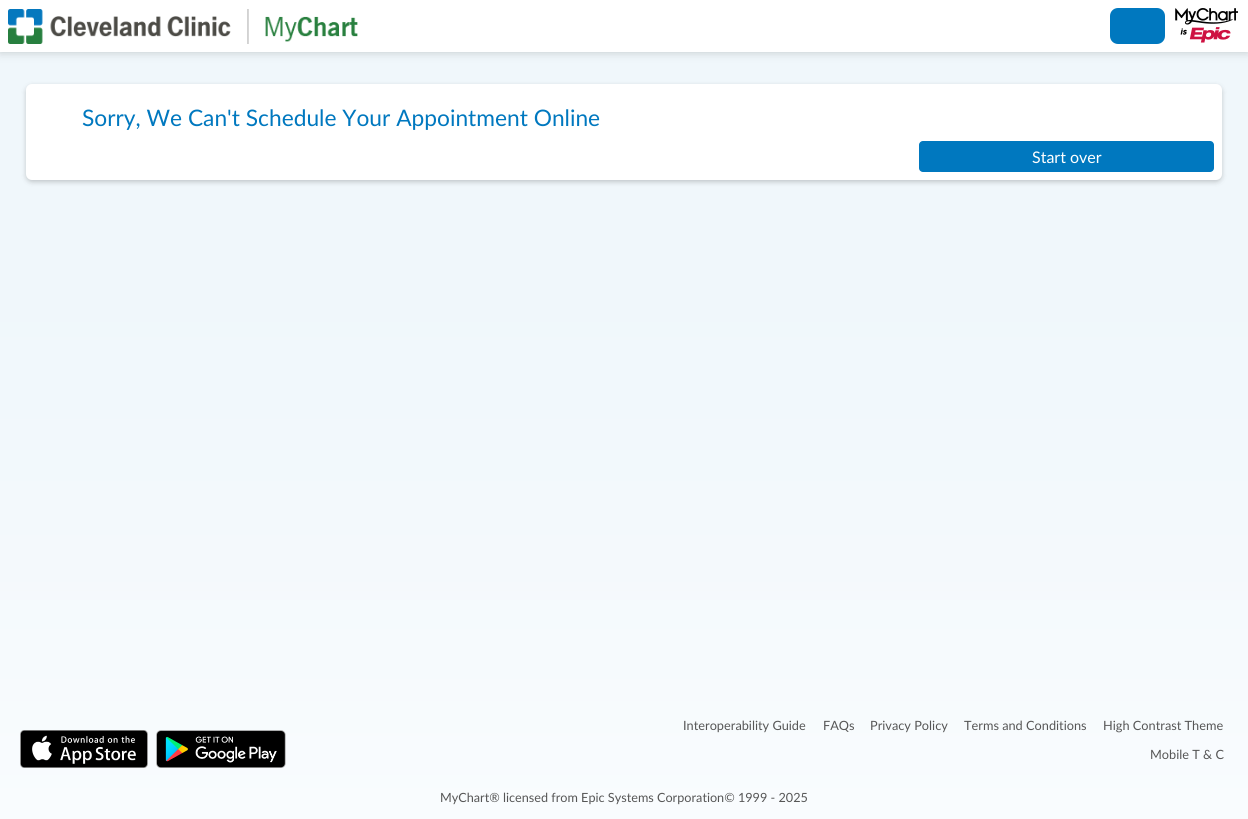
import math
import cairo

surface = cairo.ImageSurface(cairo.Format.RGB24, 1248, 819)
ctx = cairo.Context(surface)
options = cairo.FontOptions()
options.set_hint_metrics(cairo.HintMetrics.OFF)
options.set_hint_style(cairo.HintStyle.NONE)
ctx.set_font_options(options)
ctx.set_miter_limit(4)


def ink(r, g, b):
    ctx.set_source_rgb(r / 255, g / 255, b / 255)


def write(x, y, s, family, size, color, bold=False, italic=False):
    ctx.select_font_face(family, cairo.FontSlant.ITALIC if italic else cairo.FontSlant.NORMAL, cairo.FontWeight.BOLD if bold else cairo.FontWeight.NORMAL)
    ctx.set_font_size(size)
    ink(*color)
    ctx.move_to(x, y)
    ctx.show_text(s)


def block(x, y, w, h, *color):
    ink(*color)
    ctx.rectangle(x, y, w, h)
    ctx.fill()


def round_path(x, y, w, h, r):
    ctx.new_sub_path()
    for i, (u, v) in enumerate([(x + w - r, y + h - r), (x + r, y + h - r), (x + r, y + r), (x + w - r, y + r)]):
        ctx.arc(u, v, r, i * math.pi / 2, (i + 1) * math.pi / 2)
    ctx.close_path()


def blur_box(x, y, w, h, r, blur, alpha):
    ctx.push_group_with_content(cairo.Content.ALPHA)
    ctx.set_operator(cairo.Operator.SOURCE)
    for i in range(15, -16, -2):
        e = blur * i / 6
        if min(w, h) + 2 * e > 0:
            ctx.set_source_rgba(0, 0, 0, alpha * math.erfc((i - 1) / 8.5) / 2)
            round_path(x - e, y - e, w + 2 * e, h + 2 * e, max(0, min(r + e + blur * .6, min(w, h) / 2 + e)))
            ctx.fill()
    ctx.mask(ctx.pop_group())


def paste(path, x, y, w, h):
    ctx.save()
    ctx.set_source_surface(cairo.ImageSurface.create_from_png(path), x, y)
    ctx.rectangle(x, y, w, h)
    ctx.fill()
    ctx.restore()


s1 = dict(family="Lato", size=22.75, color=(0, 120, 191))
s2 = dict(family="Lato", size=16, color=(255, 255, 255))
s3 = dict(family="Lato", size=12.75, color=(86, 86, 86))
s4 = dict(family="Lato", size=12.65, color=(86, 86, 86))

ink(255, 255, 255)
ctx.paint()
gradient = cairo.LinearGradient(624, 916, 624, 19)
gradient.add_color_stop_rgba(0, 0.988, 0.992, 0.996, 1)
gradient.add_color_stop_rgba(0.12, 0.976, 0.988, 0.996, 1)
gradient.add_color_stop_rgba(0.29, 0.965, 0.98, 0.992, 1)
gradient.add_color_stop_rgba(0.45, 0.953, 0.976, 0.988, 1)
gradient.add_color_stop_rgba(0.59, 0.945, 0.973, 0.988, 1)
gradient.add_color_stop_rgba(0.71, 0.941, 0.969, 0.984, 1)
gradient.add_color_stop_rgba(0.79, 0.941, 0.969, 0.984, 1)
ctx.set_source(gradient)
ctx.rectangle(0, 52, 1248, 634)
ctx.fill()
ctx.rectangle(0, 776, 1248, 43)
ctx.fill()
ctx.rectangle(0, 686, 1248, 90)
ctx.fill()
ink(0, 0, 0)
blur_box(0, 0, 1248, 52, 0, 5, 0.2)
block(0, 0, 1248, 52, 255, 255, 255)
paste("pic1.png", 8, 9, 350, 35)
ink(0, 120, 191)
round_path(1111, 9, 53, 34, 7)
ctx.fill_preserve()
ctx.stroke()
paste("pic2.png", 1175, 8, 63, 35)
ink(0, 0, 0)
blur_box(26, 86, 1196, 96, 6, 2.5, 0.2)
ink(255, 255, 255)
round_path(26, 84, 1196, 96, 6)
ctx.fill()
write(82, 126, "Sorry, We Can't Schedule Your Appointment Online", **s1)
round_path(919, 141, 295, 31, 4)
ctx.fill()
write(1032, 163, "Start over", **s2)
paste("pic3.png", 20, 730, 128, 38)
paste("pic4.png", 156, 730, 130, 38)
write(683, 730, "Interoperability Guide", **s3)
write(823, 730, "FAQs", **s3)
write(870, 730, "Privacy Policy", **s3)
write(964, 730, "Terms and Conditions", **s3)
write(1103, 730, "High Contrast Theme", **s3)
write(1150, 759, "Mobile T & C", **s3)
write(440, 802, "MyChart® licensed from Epic Systems Corporation© 1999 - 2025", **s4)
surface.write_to_png("screenshot.png")
